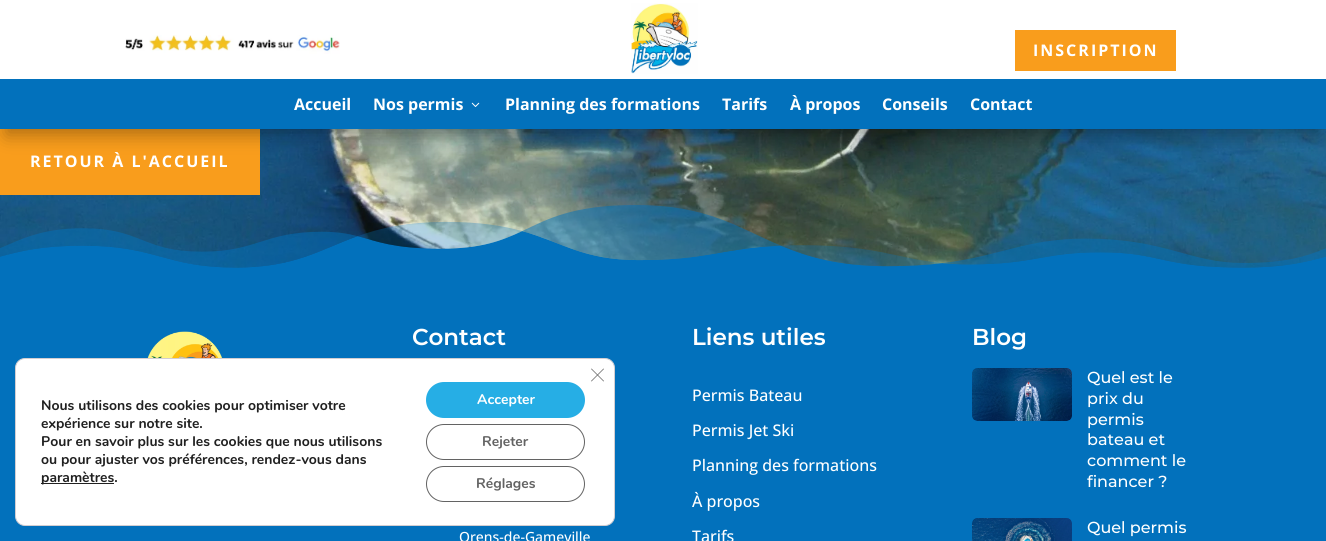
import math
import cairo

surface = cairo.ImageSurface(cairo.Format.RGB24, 1326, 541)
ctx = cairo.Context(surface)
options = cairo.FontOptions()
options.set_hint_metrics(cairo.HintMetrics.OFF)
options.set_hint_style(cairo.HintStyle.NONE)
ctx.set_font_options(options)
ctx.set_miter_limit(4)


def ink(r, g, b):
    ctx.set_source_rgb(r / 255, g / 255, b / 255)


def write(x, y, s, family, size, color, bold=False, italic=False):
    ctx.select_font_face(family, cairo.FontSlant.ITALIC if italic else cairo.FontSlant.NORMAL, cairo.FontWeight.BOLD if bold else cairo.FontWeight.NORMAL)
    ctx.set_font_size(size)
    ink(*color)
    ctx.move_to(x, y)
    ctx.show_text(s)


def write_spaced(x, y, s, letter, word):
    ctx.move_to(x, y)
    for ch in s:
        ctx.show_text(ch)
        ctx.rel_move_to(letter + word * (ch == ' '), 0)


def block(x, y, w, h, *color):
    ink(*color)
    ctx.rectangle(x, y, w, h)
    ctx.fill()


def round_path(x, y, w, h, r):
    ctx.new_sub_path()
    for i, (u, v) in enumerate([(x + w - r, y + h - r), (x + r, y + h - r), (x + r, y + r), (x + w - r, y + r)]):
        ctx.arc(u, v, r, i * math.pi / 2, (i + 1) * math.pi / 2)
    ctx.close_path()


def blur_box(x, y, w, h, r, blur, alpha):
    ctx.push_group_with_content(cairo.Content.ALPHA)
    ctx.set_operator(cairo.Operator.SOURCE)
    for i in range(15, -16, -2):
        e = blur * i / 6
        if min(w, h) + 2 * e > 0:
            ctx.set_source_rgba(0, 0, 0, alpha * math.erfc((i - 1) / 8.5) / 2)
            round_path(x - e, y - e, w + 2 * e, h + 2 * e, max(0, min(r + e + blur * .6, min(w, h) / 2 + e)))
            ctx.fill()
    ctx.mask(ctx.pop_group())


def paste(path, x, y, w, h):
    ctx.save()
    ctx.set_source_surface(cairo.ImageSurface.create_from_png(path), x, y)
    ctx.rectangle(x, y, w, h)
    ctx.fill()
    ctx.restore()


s1 = dict(family="Open Sans", size=16, color=(255, 255, 255), bold=True)
s2 = dict(family="Montserrat SemiBold", size=23, color=(255, 255, 255))
s3 = dict(family="Open Sans Medium", size=14, color=(255, 255, 255))
s4 = dict(family="Open Sans Medium", size=16, color=(255, 255, 255))
s5 = dict(family="Montserrat Medium", size=16, color=(255, 255, 255))
s6 = dict(family="Nunito", size=14, color=(32, 32, 32), bold=True)
s7 = dict(family="Nunito", size=14, color=(255, 255, 255), bold=True)
s8 = dict(family="Nunito", size=14, color=(99, 99, 99), bold=True)

ink(255, 255, 255)
ctx.paint()
paste("pic4.png", 0, 129, 1326, 139)
paste("pic5.png", 0, 205, 1326, 68)
ink(0, 0, 0)
blur_box(0, 19, 900, 84, 0, 37.5, 0.15)
block(0, 129, 260, 66, 249, 157, 28)
ink(0, 0, 0)
blur_box(6, 18, 1314, 117, 0, 9, 0.3)
block(0, 0, 1326, 79, 255, 255, 255)
paste("pic1.png", 125, 35, 215, 19)
paste("pic2.png", 631, 3, 67, 71)
block(1015, 30, 161, 41, 249, 157, 28)
ctx.select_font_face("Open Sans", cairo.FontSlant.NORMAL, cairo.FontWeight.BOLD)
ctx.set_font_size(16)
ink(255, 255, 255)
write_spaced(1033, 56, "INSCRIPTION", 2, 0)
block(0, 79, 1326, 50, 2, 113, 188)
write(294, 110, "Accueil", **s1)
write(373, 110, "Nos permis", **s1)
paste("pic3.png", 471, 102, 9, 5)
write(505, 110, "Planning des formations", **s1)
write(722, 110, "Tarifs", **s1)
write(790, 110, "À propos", **s1)
write(882, 110, "Conseils", **s1)
write(970, 110, "Contact", **s1)
write_spaced(30, 167, "RETOUR À L'ACCUEIL", 2, 0)
block(0, 273, 1326, 268, 2, 113, 188)
paste("pic6.png", 147, 331, 75, 27)
write(412, 345, "Contact", **s2)
write(459, 542, "Orens-de-Gameville", **s3)
write(692, 345, "Liens utiles", **s2)
write(692, 401, "Permis Bateau", **s4)
write(692, 436, "Permis Jet Ski", **s4)
write(692, 471, "Planning des formations", **s4)
write(692, 507, "À propos", **s4)
write(692, 542, "Tarifs", **s4)
write(972, 345, "Blog", **s2)
paste("pic7.png", 972, 368, 100, 53)
write(1087, 383, "Quel est le", **s5)
write(1087, 404, "prix du", **s5)
write(1087, 425, "permis", **s5)
write(1087, 445, "bateau et", **s5)
write(1087, 466, "comment le", **s5)
write(1087, 487, "financer ?", **s5)
paste("pic8.png", 972, 518, 100, 23)
write(1087, 533, "Quel permis", **s5)
round_path(15.5, 358.5, 599, 167, 9.5)
ctx.fill_preserve()
ink(211, 206, 210)
ctx.set_line_width(1)
ctx.stroke()
write(41, 410, "Nous utilisons des cookies pour optimiser votre", **s6)
write(41, 428, "expérience sur notre site.", **s6)
write(41, 446, "Pour en savoir plus sur les cookies que nous utilisons", **s6)
write(41, 464, "ou pour ajuster vos préférences, rendez-vous dans", **s6)
block(41, 483, 73, 1, 32, 32, 32)
write(41, 482, "paramètres.", **s6)
ink(98, 98, 98)
ctx.new_path()
ctx.move_to(603.5, 368.5)
ctx.line_to(604, 369)
ctx.line_to(591.5, 381.5)
ctx.line_to(591, 381)
ctx.close_path()
ctx.fill()
ctx.new_path()
ctx.move_to(591, 369)
ctx.line_to(591.5, 368.5)
ctx.line_to(604, 381)
ctx.line_to(603.5, 381.5)
ctx.close_path()
ctx.fill()
ink(38, 174, 229)
round_path(426, 382, 159, 36, 18)
ctx.fill()
write(477, 404, "Accepter", **s7)
round_path(426.5, 424.5, 158, 35, 17.5)
ink(99, 99, 99)
ctx.stroke()
write(482, 446, "Rejeter", **s8)
round_path(426.5, 466.5, 158, 35, 17.5)
ctx.stroke()
write(476, 488, "Réglages", **s8)
surface.write_to_png("screenshot.png")
